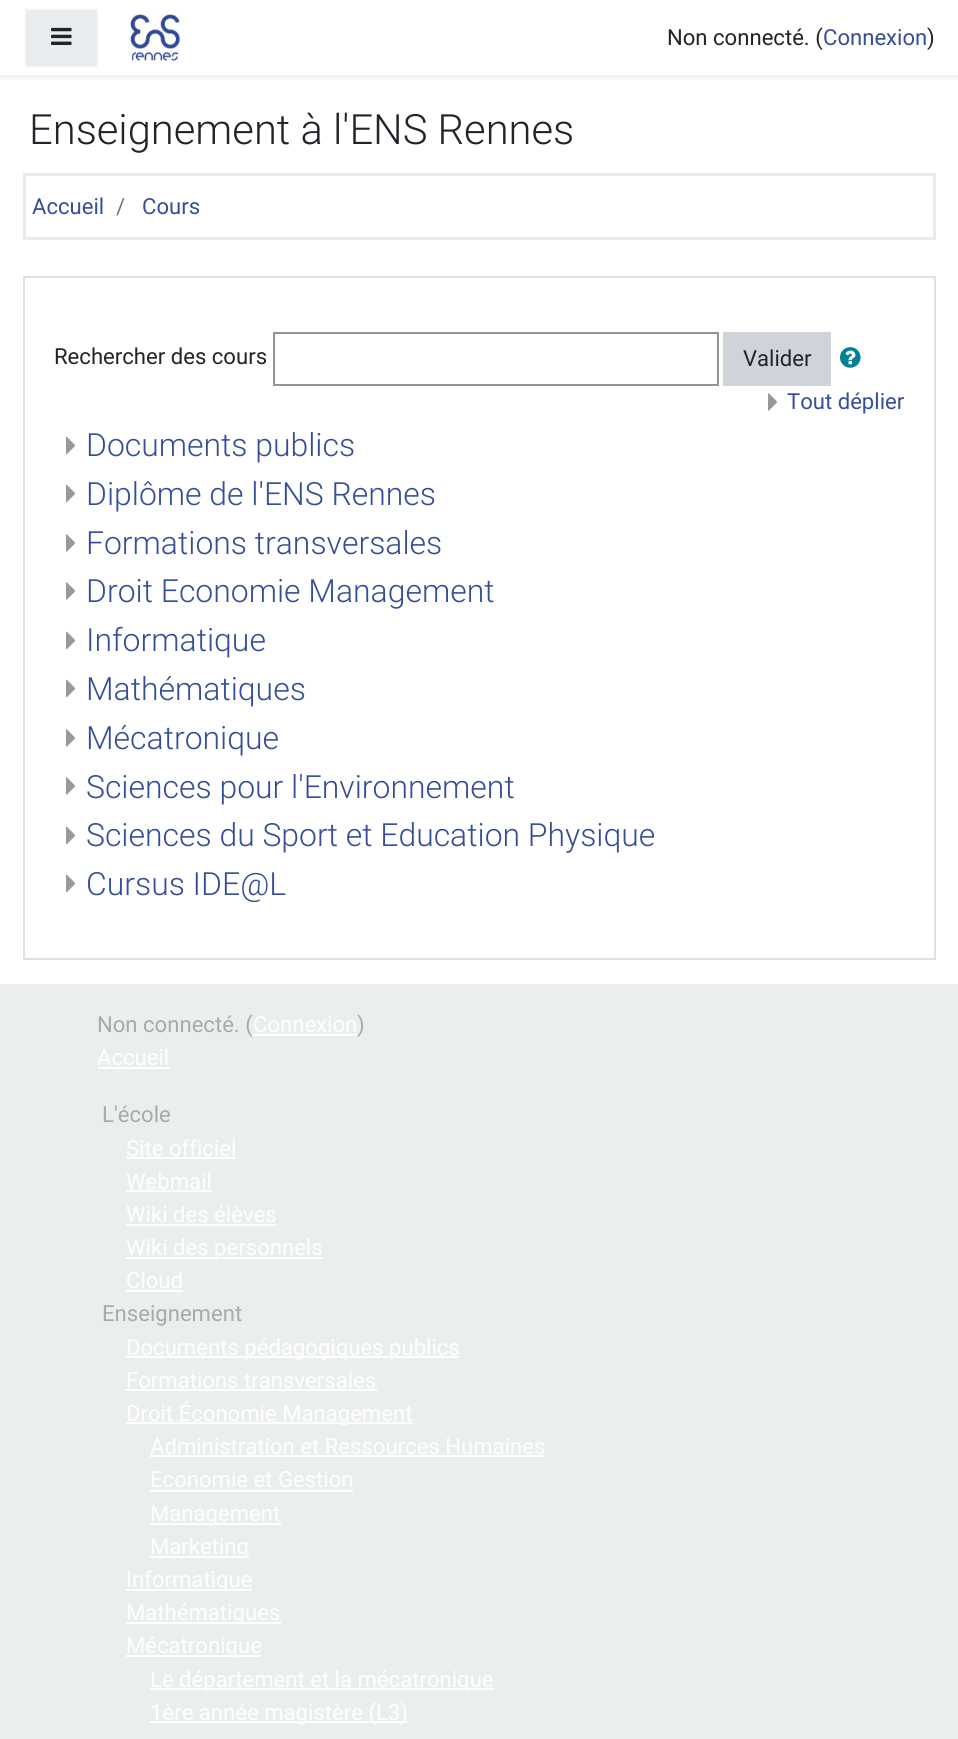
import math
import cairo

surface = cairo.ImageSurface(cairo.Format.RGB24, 958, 1739)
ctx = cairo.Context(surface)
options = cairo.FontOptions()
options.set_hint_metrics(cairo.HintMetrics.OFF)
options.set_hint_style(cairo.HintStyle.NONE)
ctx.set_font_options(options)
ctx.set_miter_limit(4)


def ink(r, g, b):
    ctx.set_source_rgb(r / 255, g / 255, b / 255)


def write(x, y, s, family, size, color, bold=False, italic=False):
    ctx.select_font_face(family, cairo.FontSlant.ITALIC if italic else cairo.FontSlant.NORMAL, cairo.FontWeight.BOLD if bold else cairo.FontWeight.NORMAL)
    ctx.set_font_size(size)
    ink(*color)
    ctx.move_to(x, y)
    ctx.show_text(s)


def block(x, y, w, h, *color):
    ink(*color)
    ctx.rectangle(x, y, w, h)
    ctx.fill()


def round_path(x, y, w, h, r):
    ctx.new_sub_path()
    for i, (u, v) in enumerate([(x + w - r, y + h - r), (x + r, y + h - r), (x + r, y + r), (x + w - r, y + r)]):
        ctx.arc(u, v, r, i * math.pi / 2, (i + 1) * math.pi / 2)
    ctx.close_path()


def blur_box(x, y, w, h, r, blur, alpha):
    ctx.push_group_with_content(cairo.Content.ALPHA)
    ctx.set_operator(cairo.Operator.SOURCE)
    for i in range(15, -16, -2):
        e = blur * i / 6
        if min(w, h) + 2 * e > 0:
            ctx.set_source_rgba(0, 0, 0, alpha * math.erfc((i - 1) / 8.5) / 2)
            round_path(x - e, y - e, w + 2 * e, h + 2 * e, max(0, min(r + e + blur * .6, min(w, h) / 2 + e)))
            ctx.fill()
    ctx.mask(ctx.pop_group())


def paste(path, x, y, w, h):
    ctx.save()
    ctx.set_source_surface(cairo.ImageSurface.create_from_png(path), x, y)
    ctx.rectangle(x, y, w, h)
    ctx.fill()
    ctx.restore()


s1 = dict(family="Roboto", size=22.1, color=(33, 37, 41))
s2 = dict(family="Roboto", size=22.1, color=(53, 78, 151))
s3 = dict(family="Roboto Light", size=41.7, color=(33, 37, 41))
s4 = dict(family="Roboto", size=22.1, color=(108, 117, 125))
s5 = dict(family="Roboto Light", size=31.9, color=(53, 78, 151))
s6 = dict(family="Roboto", size=22.1, color=(169, 169, 169))
s7 = dict(family="Roboto", size=22.1, color=(255, 255, 255))

ink(255, 255, 255)
ctx.paint()
ctx.save()
ctx.rectangle(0, 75, 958, 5)
ctx.clip()
ink(0, 0, 0)
blur_box(0, 3, 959, 75, 0, 3, 0.08)
ctx.restore()
ink(233, 236, 239)
ctx.rectangle(25, 9, 73, 58)
ctx.fill_preserve()
ink(248, 249, 250)
ctx.stroke()
paste("pic1.png", 51, 27, 21, 18)
paste("pic2.png", 130, 14, 50, 48)
write(667, 45, "Non connecté. (", **s1)
write(823, 45, "Connexion", **s2)
write(927, 45, ")", **s1)
write(29, 144, "Enseignement à l'ENS Rennes", **s3)
ctx.rectangle(24.5, 174.5, 910, 64)
ink(233, 236, 239)
ctx.set_line_width(3)
ctx.stroke()
write(32, 214, "Accueil", **s2)
write(116, 214, "/", **s4)
write(142, 214, "Cours", **s2)
ctx.rectangle(24, 277, 911, 682)
ink(223, 223, 223)
ctx.set_line_width(2)
ctx.stroke()
write(54, 364, "Rechercher des cours", **s1)
ctx.rectangle(274, 333, 444, 52)
ink(143, 149, 158)
ctx.stroke()
block(723, 332, 108, 54, 206, 212, 218)
write(743, 366, "Valider", **s1)
paste("pic3.png", 840, 347, 21, 21)
paste("pic4.png", 768, 393, 9, 18)
write(787, 409, "Tout déplier", **s2)
paste("pic5.png", 66, 436, 9, 19)
write(86, 456, "Documents publics", **s5)
paste("pic5.png", 66, 484, 9, 19)
write(86, 505, "Diplôme de l'ENS Rennes", **s5)
paste("pic4.png", 66, 534, 9, 18)
write(86, 554, "Formations transversales", **s5)
paste("pic4.png", 66, 582, 9, 18)
write(86, 602, "Droit Economie Management", **s5)
paste("pic5.png", 66, 631, 9, 19)
write(86, 651, "Informatique", **s5)
paste("pic5.png", 66, 679, 9, 19)
write(86, 700, "Mathématiques", **s5)
paste("pic4.png", 66, 729, 9, 18)
write(86, 749, "Mécatronique", **s5)
paste("pic4.png", 66, 777, 9, 18)
write(86, 798, "Sciences pour l'Environnement", **s5)
paste("pic5.png", 66, 826, 9, 19)
write(86, 846, "Sciences du Sport et Education Physique", **s5)
paste("pic5.png", 66, 874, 9, 19)
write(86, 895, "Cursus IDE@L", **s5)
block(0, 984, 958, 755, 235, 238, 239)
write(97, 1032, "Non connecté. (", **s6)
write(253, 1032, "Connexion", **s7)
block(252, 1034, 105, 2, 255, 255, 255)
write(357, 1032, ")", **s6)
write(97, 1065, "Accueil", **s7)
block(98, 1067, 72, 2, 255, 255, 255)
write(102, 1122, "L'école", **s6)
write(126, 1156, "Site officiel", **s7)
block(126, 1157, 110, 2, 255, 255, 255)
write(126, 1189, "Webmail", **s7)
block(126, 1190, 86, 2, 255, 255, 255)
write(126, 1222, "Wiki des élèves", **s7)
block(126, 1224, 150, 2, 255, 255, 255)
block(126, 1257, 197, 2, 255, 255, 255)
write(126, 1255, "Wiki des personnels", **s7)
write(126, 1288, "Cloud", **s7)
block(126, 1290, 57, 2, 255, 255, 255)
write(102, 1321, "Enseignement", **s6)
block(126, 1356, 333, 2, 255, 255, 255)
write(126, 1355, "Documents pédagogiques publics", **s7)
write(126, 1388, "Formations transversales", **s7)
block(126, 1389, 251, 2, 255, 255, 255)
block(126, 1422, 287, 2, 255, 255, 255)
write(126, 1421, "Droit Économie Management", **s7)
write(150, 1454, "Administration et Ressources Humaines", **s7)
block(150, 1455, 395, 2, 255, 255, 255)
write(150, 1487, "Economie et Gestion", **s7)
block(150, 1490, 203, 2, 255, 255, 255)
block(150, 1523, 131, 2, 255, 255, 255)
write(150, 1521, "Management", **s7)
block(150, 1556, 99, 2, 255, 255, 255)
write(150, 1554, "Marketing", **s7)
block(126, 1589, 126, 2, 255, 255, 255)
write(126, 1587, "Informatique", **s7)
block(126, 1622, 155, 2, 255, 255, 255)
write(126, 1620, "Mathématiques", **s7)
block(126, 1655, 135, 2, 255, 255, 255)
write(126, 1653, "Mécatronique", **s7)
block(150, 1688, 344, 2, 255, 255, 255)
write(150, 1687, "Le département et la mécatronique", **s7)
block(150, 1721, 258, 2, 255, 255, 255)
write(150, 1720, "1ère année magistère (L3)", **s7)
surface.write_to_png("screenshot.png")
